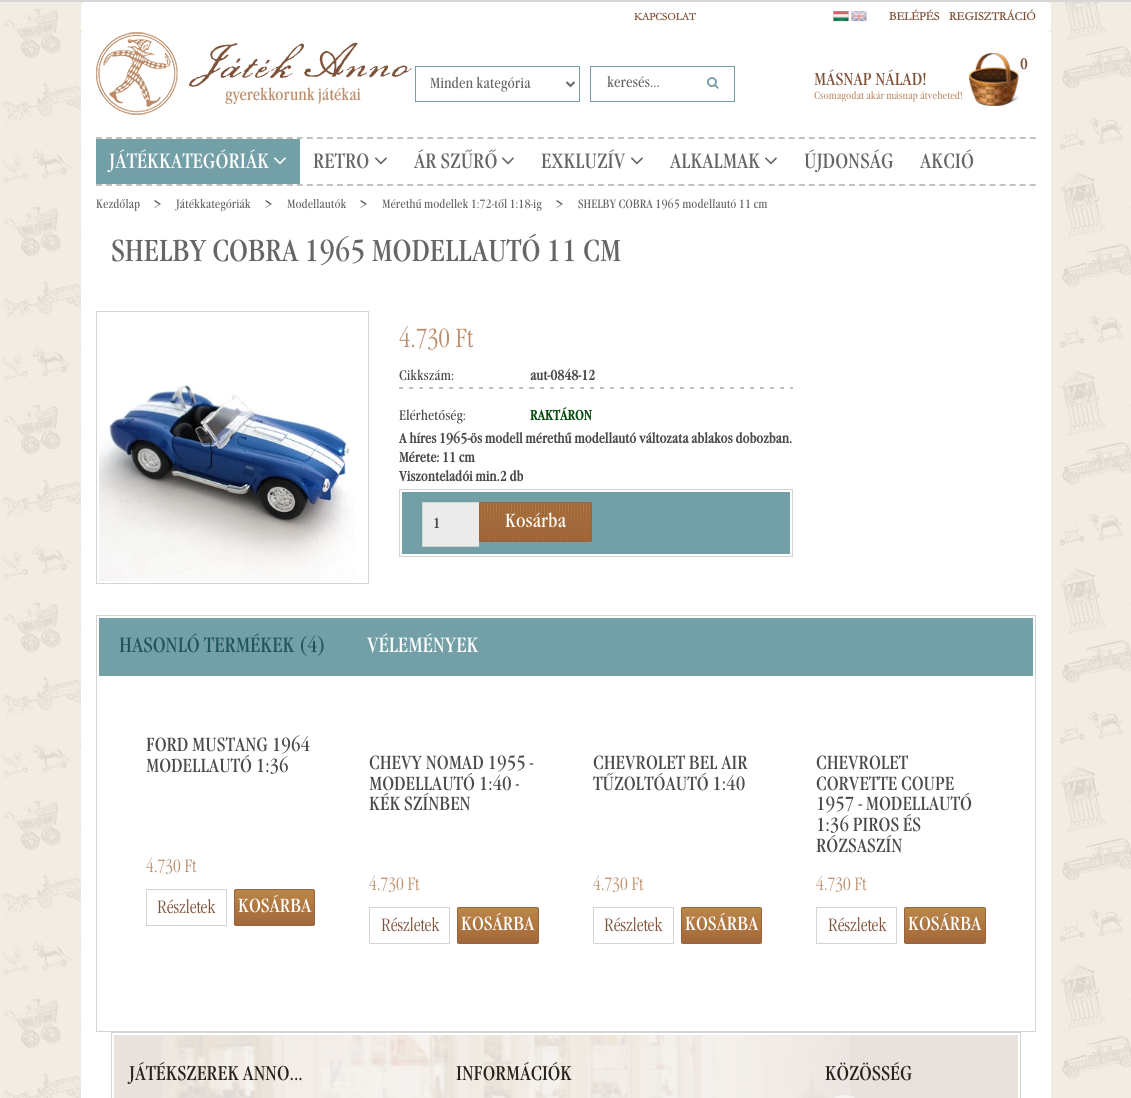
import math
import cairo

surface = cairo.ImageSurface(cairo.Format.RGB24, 1131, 1098)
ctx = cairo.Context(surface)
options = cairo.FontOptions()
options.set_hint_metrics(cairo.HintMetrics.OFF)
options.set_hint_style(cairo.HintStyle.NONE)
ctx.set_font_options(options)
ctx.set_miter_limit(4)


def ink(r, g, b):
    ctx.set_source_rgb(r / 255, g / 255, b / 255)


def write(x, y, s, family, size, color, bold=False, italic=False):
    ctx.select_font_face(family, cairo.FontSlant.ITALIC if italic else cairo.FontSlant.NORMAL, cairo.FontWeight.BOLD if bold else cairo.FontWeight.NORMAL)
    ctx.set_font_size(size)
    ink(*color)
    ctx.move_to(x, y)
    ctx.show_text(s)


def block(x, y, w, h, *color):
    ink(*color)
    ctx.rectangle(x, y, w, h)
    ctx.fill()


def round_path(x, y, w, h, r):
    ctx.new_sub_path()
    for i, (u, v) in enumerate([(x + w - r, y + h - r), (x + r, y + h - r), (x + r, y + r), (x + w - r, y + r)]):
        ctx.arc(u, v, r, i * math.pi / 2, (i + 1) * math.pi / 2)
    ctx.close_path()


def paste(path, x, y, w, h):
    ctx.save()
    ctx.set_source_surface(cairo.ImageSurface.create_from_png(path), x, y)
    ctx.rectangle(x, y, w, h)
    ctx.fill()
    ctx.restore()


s1 = dict(family="Garamond", size=10.75, color=(127, 83, 58), bold=True)
s2 = dict(family="Garamond", size=12, color=(127, 83, 58), bold=True)
s3 = dict(family="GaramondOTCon", size=15.25, color=(102, 102, 102))
s4 = dict(family="GaramondOTCon", size=15.25, color=(127, 83, 58), bold=True)
s5 = dict(family="GaramondOTCon", size=18, color=(127, 83, 58))
s6 = dict(family="GaramondOTCon", size=10.75, color=(190, 143, 109))
s7 = dict(family="GaramondOTCon", size=21.5, color=(255, 255, 255))
s8 = dict(family="GaramondOTCon", size=21.5, color=(102, 102, 102))
s9 = dict(family="GaramondOTCon", size=12.6, color=(102, 102, 102))
s10 = dict(family="GaramondOTCon", size=15, color=(102, 102, 102))
s11 = dict(family="GaramondOTCon", size=31.5, color=(102, 102, 102))
s12 = dict(family="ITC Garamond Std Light", size=29, color=(190, 143, 109))
s13 = dict(family="GaramondOTCon", size=14.4, color=(74, 74, 74))
s14 = dict(family="GaramondOTCon", size=14.4, color=(74, 74, 74), bold=True)
s15 = dict(family="GaramondOTCon", size=14.4, color=(8, 77, 16), bold=True)
s16 = dict(family="GaramondOTCon", size=19.75, color=(255, 255, 255))
s17 = dict(family="GaramondOTCon", size=21.5, color=(33, 85, 94))
s18 = dict(family="GaramondOTCon", size=19.75, color=(74, 74, 74))
s19 = dict(family="ITC Garamond Std Light", size=19.75, color=(190, 143, 109))
s20 = dict(family="ITC Garamond Std Light", size=19.75, color=(127, 83, 58))
s21 = dict(family="GaramondOTCon", size=20.75, color=(40, 33, 29))

ink(242, 237, 226)
ctx.paint()
paste("pic1.png", 1, 2, 1130, 1096)
block(0, 0, 1131, 2, 215, 215, 215)
ink(255, 255, 255)
round_path(81, 2, 970, 30, 4)
ctx.fill()
write(634, 20, "KAPCSOLAT", **s1)
paste("pic2.png", 833, 11, 16, 11)
paste("pic3.png", 851, 11, 16, 11)
write(889, 20, "BELÉPÉS", **s2)
write(949, 20, "REGISZTRÁCIÓ", **s2)
block(81, 32, 970, 1066, 255, 255, 255)
paste("pic4.png", 96, 32, 316, 83)
ctx.rectangle(415.5, 66.5, 164, 35)
ink(115, 159, 167)
ctx.set_line_width(1)
ctx.stroke()
ctx.new_path()
ctx.move_to(566.5, 82)
ctx.line_to(570.5, 86)
ctx.line_to(574.5, 82)
ink(102, 102, 102)
ctx.set_line_width(2)
ctx.stroke()
write(430, 88, "Minden kategória", **s3)
ctx.rectangle(590.5, 66.5, 144, 35)
ink(115, 159, 167)
ctx.set_line_width(1)
ctx.stroke()
write(607, 87, "keresés...", **s3)
paste("pic5.png", 707, 77, 12, 12)
paste("pic6.png", 969, 53, 50, 53)
write(1020, 69, "0", **s4)
write(814, 85, "MÁSNAP NÁLAD!", **s5)
write(814, 99, "Csomagodat akár másnap átveheted!", **s6)
ctx.new_path()
ctx.move_to(96, 138)
ctx.line_to(1036, 138)
ink(193, 193, 193)
ctx.set_line_width(2)
ctx.set_dash([6, 4.04])
ctx.stroke()
ctx.new_path()
ctx.move_to(96, 185)
ctx.line_to(1036, 185)
ctx.stroke()
block(96, 139, 204, 45, 115, 159, 167)
write(109, 168, "JÁTÉKKATEGÓRIÁK", **s7)
paste("pic7.png", 274, 157, 12, 8)
write(313, 168, "RETRO", **s8)
paste("pic8.png", 375, 157, 12, 8)
write(414, 168, "ÁR SZŰRŐ", **s8)
paste("pic8.png", 502, 157, 12, 8)
write(541, 168, "EXKLUZÍV", **s8)
paste("pic8.png", 631, 157, 12, 8)
write(670, 168, "ALKALMAK", **s8)
paste("pic8.png", 765, 157, 12, 8)
write(804, 168, "ÚJDONSÁG", **s8)
write(920, 168, "AKCIÓ", **s8)
write(96, 208, "Kezdőlap", **s9)
write(154, 209, ">", **s10)
write(176, 208, "Játékkategóriák", **s9)
write(265, 209, ">", **s10)
write(287, 208, "Modellautók", **s9)
write(360, 209, ">", **s10)
write(382, 208, "Mérethű modellek 1:72-től 1:18-ig", **s9)
write(556, 209, ">", **s10)
write(578, 208, "SHELBY COBRA 1965 modellautó 11 cm", **s9)
write(111, 261, "SHELBY COBRA 1965 MODELLAUTÓ 11 CM", **s11)
ctx.rectangle(96.5, 311.5, 272, 272)
ink(211, 212, 212)
ctx.set_line_width(1)
ctx.set_dash([])
ctx.stroke()
paste("pic9.png", 99, 384, 255, 197)
write(399, 347, "4.730 Ft", **s12)
write(399, 380, "Cikkszám:", **s13)
write(530, 380, "aut-0848-12", **s14)
paste("pic10.png", 399, 387, 131, 2)
write(399, 420, "Elérhetőség:", **s13)
paste("pic11.png", 530, 387, 263, 2)
write(530, 420, "RAKTÁRON", **s15)
write(399, 443, "A híres 1965-ös modell mérethű modellautó változata ablakos dobozban.", **s14)
write(399, 462, "Mérete: 11 cm", **s14)
write(399, 481, "Viszonteladói min.2 db", **s14)
ctx.rectangle(399.5, 489.5, 393, 67)
ink(211, 212, 212)
ctx.stroke()
block(402, 492, 77, 62, 115, 159, 167)
block(423, 503, 56, 43, 235, 235, 235)
ctx.rectangle(422.5, 502.5, 59, 44)
ink(211, 212, 212)
ctx.stroke()
write(433, 528, "1", **s14)
block(479, 492, 311, 62, 115, 159, 167)
ink(163, 103, 58)
round_path(479, 502, 113, 40, 2)
ctx.fill()
paste("pic12.png", 481, 503, 109, 38)
round_path(479.5, 502.5, 112, 39, 1.5)
ink(148, 101, 62)
ctx.stroke()
write(505, 527, "Kosárba", **s16)
ctx.rectangle(96.5, 615.5, 939, 416)
ink(211, 212, 212)
ctx.stroke()
block(99, 618, 934, 58, 115, 159, 167)
write(119, 652, "HASONLÓ TERMÉKEK", **s17)
write(300, 652, "(4)", **s17)
write(367, 652, "VÉLEMÉNYEK", **s7)
write(146, 751, "FORD MUSTANG 1964", **s18)
write(146, 772, "MODELLAUTÓ 1:36", **s18)
write(146, 872, "4.730 Ft", **s19)
ctx.rectangle(146.5, 889.5, 80, 36)
ink(211, 212, 212)
ctx.stroke()
write(157, 913, "Részletek", **s20)
ctx.save()
round_path(234, 889, 81, 37, 2)
ctx.clip()
gradient = cairo.LinearGradient(275, 890, 275, 925)
gradient.add_color_stop_rgba(0, 0.729, 0.525, 0.282, 1)
gradient.add_color_stop_rgba(1, 0.639, 0.404, 0.227, 1)
ctx.set_source(gradient)
ctx.rectangle(234, 890, 81, 35)
ctx.fill()
ctx.restore()
round_path(234.5, 889.5, 80, 36, 1.5)
ink(148, 101, 62)
ctx.stroke()
write(238, 912, "KOSÁRBA", **s16)
write(369, 769, "CHEVY NOMAD 1955 -", **s18)
write(369, 790, "MODELLAUTÓ 1:40 -", **s18)
write(369, 810, "KÉK SZÍNBEN", **s18)
write(369, 890, "4.730 Ft", **s19)
ctx.rectangle(369.5, 907.5, 80, 36)
ink(211, 212, 212)
ctx.stroke()
write(381, 931, "Részletek", **s20)
ctx.save()
round_path(457, 907, 82, 37, 2)
ctx.clip()
gradient = cairo.LinearGradient(498, 908, 498, 943)
gradient.add_color_stop_rgba(0, 0.729, 0.525, 0.282, 1)
gradient.add_color_stop_rgba(1, 0.639, 0.404, 0.227, 1)
ctx.set_source(gradient)
ctx.rectangle(457, 908, 82, 35)
ctx.fill()
ctx.restore()
round_path(457.5, 907.5, 81, 36, 1.5)
ink(148, 101, 62)
ctx.stroke()
write(461, 930, "KOSÁRBA", **s16)
write(593, 769, "CHEVROLET BEL AIR", **s18)
write(593, 790, "TŰZOLTÓAUTÓ 1:40", **s18)
write(593, 890, "4.730 Ft", **s19)
ctx.rectangle(593.5, 907.5, 80, 36)
ink(211, 212, 212)
ctx.stroke()
write(604, 931, "Részletek", **s20)
ctx.save()
round_path(681, 907, 81, 37, 2)
ctx.clip()
gradient = cairo.LinearGradient(722, 908, 722, 943)
gradient.add_color_stop_rgba(0, 0.729, 0.525, 0.282, 1)
gradient.add_color_stop_rgba(1, 0.639, 0.404, 0.227, 1)
ctx.set_source(gradient)
ctx.rectangle(681, 908, 81, 35)
ctx.fill()
ctx.restore()
round_path(681.5, 907.5, 80, 36, 1.5)
ink(148, 101, 62)
ctx.stroke()
write(685, 930, "KOSÁRBA", **s16)
write(816, 769, "CHEVROLET", **s18)
write(816, 790, "CORVETTE COUPE", **s18)
write(816, 810, "1957 - MODELLAUTÓ", **s18)
write(816, 831, "1:36 PIROS ÉS", **s18)
write(816, 852, "RÓZSASZÍN", **s18)
write(816, 890, "4.730 Ft", **s19)
ctx.rectangle(816.5, 907.5, 80, 36)
ink(211, 212, 212)
ctx.stroke()
write(828, 931, "Részletek", **s20)
ctx.save()
round_path(904, 907, 82, 37, 2)
ctx.clip()
gradient = cairo.LinearGradient(945, 908, 945, 943)
gradient.add_color_stop_rgba(0, 0.729, 0.525, 0.282, 1)
gradient.add_color_stop_rgba(1, 0.639, 0.404, 0.227, 1)
ctx.set_source(gradient)
ctx.rectangle(904, 908, 82, 35)
ctx.fill()
ctx.restore()
round_path(904.5, 907.5, 81, 36, 1.5)
ink(148, 101, 62)
ctx.stroke()
write(908, 930, "KOSÁRBA", **s16)
ctx.rectangle(111.5, 1032.5, 909, 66)
ink(211, 212, 212)
ctx.stroke()
block(114, 1035, 904, 63, 233, 226, 220)
paste("pic13.png", 162, 1035, 688, 63)
write(129, 1080, "JÁTÉKSZEREK ANNO...", **s21)
write(456, 1080, "INFORMÁCIÓK", **s21)
write(825, 1080, "KÖZÖSSÉG", **s21)
ctx.set_source_rgba(1, 1, 1, 0.5)
round_path(825, 1095, 40, 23, 20)
ctx.fill()
surface.write_to_png("screenshot.png")
